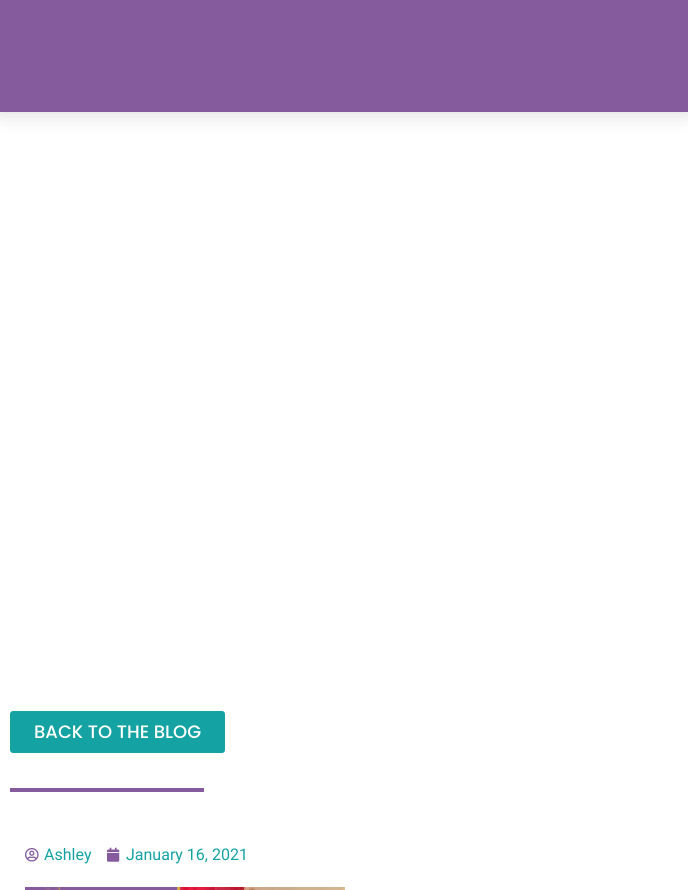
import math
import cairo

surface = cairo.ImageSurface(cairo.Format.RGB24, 688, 890)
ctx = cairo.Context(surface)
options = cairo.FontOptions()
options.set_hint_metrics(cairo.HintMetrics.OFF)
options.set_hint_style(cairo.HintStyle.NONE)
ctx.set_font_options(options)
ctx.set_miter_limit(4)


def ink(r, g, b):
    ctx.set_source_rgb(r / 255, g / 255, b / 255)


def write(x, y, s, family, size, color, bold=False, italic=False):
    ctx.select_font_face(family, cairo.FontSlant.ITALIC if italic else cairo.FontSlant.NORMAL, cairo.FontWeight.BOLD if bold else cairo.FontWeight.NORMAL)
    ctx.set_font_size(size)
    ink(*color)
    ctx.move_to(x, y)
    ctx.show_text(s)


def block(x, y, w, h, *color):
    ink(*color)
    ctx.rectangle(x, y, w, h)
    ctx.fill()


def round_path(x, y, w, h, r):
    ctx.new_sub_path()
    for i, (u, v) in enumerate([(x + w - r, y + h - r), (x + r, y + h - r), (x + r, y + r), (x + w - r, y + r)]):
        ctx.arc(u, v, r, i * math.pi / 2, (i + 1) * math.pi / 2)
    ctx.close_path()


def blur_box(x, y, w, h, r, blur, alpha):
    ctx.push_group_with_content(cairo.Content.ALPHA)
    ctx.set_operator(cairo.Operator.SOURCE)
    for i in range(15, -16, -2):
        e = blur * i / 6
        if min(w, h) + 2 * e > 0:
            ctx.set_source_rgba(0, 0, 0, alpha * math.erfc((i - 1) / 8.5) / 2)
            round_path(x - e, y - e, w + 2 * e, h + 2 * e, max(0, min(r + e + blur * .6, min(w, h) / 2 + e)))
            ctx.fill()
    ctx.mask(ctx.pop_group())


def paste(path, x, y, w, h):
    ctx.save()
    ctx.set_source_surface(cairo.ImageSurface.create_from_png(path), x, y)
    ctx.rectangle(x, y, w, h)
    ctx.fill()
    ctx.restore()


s1 = dict(family="Poppins Medium", size=18, color=(255, 255, 255))
s2 = dict(family="Roboto", size=16, color=(20, 162, 163))

ink(255, 255, 255)
ctx.paint()
ink(0, 0, 0)
blur_box(0, 0, 688, 112, 0, 12, 0.15)
block(0, 0, 688, 112, 133, 91, 157)
ink(20, 162, 163)
round_path(10, 711, 215, 42, 3)
ctx.fill()
write(34, 738, "BACK TO THE BLOG", **s1)
block(10, 788, 194, 4, 133, 91, 157)
paste("pic1.png", 25, 848, 14, 14)
write(44, 860, "Ashley", **s2)
paste("pic2.png", 107, 847, 13, 15)
write(126, 860, "January 16, 2021", **s2)
paste("pic3.png", 25, 887, 320, 3)
surface.write_to_png("screenshot.png")
